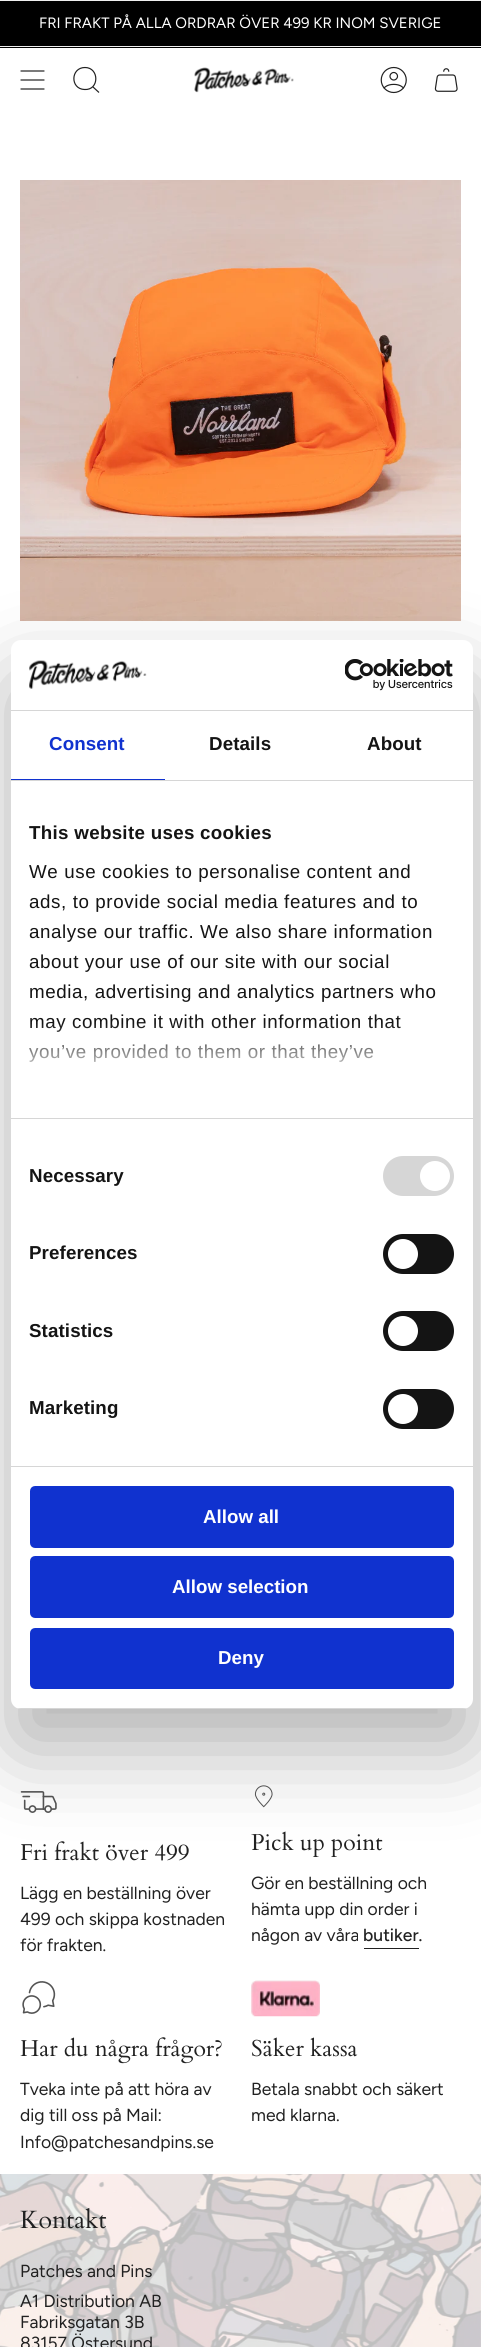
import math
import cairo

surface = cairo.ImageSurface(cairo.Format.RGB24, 481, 2347)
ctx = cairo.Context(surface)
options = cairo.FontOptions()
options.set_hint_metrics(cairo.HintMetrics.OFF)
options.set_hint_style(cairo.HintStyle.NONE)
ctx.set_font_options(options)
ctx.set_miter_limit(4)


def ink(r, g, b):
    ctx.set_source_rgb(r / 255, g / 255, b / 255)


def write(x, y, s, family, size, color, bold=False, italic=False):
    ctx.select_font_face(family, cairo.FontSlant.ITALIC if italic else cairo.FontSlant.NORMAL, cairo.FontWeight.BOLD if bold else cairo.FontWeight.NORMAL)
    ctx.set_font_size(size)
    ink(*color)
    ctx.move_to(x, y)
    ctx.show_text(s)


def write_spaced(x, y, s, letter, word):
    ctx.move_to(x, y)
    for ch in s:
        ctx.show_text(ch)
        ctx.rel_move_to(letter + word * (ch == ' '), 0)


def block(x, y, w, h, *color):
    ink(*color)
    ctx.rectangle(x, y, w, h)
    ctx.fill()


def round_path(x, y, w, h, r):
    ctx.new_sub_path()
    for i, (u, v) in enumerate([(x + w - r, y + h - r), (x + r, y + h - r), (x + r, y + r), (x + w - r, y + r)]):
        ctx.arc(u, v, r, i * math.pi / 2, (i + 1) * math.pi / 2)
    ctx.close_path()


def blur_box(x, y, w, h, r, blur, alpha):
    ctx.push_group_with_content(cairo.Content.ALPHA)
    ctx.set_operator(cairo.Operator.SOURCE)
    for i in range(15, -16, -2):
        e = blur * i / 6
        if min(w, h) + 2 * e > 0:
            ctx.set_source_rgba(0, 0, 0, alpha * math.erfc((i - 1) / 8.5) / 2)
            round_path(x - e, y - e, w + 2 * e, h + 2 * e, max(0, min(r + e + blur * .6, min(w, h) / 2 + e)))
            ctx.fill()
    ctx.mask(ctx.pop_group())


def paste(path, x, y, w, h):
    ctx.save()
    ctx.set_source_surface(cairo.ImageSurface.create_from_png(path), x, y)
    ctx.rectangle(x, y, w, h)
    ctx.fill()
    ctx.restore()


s1 = dict(family="Figtree", size=15, color=(255, 255, 255))
s2 = dict(family="Liberation Sans", size=18.75, color=(255, 255, 255), bold=True)
s3 = dict(family="Cardo", size=23, color=(33, 33, 33))
s4 = dict(family="Figtree", size=17.5, color=(33, 33, 33))
s5 = dict(family="Figtree Medium", size=17.5, color=(33, 33, 33))
s6 = dict(family="Cardo", size=25, color=(33, 33, 33))

ink(255, 255, 255)
ctx.paint()
block(0, 1, 481, 47, 0, 0, 0)
block(0, 0, 481, 1, 240, 240, 240)
block(0, 46, 481, 1, 240, 240, 240)
write(39, 28, "FRI FRAKT PÅ ALLA ORDRAR ÖVER 499 KR INOM SVERIGE", **s1)
ctx.new_path()
ctx.move_to(21, 71)
ctx.line_to(44, 71)
ctx.move_to(21, 80)
ctx.line_to(44, 80)
ctx.move_to(21, 89)
ctx.line_to(44, 89)
ink(33, 33, 33)
ctx.set_line_width(1.2)
ctx.set_line_cap(cairo.LineCap.ROUND)
ctx.set_line_join(cairo.LineJoin.ROUND)
ctx.stroke()
ctx.new_path()
ctx.move_to(85, 67.5)
ctx.curve_to(99.5, 67.5, 99.5, 90.5, 84.5, 89.5)
ctx.curve_to(70, 89, 70.5, 67.5, 85, 67.5)
ctx.close_path()
ctx.move_to(92.5, 86.5)
ctx.line_to(99, 92.5)
ctx.set_line_cap(cairo.LineCap.BUTT)
ctx.set_line_join(cairo.LineJoin.MITER)
ctx.stroke()
paste("pic1.png", 194, 67, 100, 26)
paste("pic2.png", 380, 66, 27, 28)
paste("pic3.png", 434, 68, 24, 24)
paste("pic4.png", 20, 180, 441, 441)
paste("pic7.png", 20, 1791, 37, 22)
paste("pic8.png", 254, 1785, 19, 23)
ink(0, 0, 0)
blur_box(11, 680, 462, 1069, 10, 42.5, 0.3)
ink(255, 255, 255)
round_path(11, 640, 462, 1069, 10)
ctx.fill()
block(11, 710, 462, 1, 214, 214, 214)
paste("pic5.png", 29, 660, 118, 29)
paste("pic6.png", 345, 659, 108, 32)
block(11, 780, 462, 1, 214, 214, 214)
block(11, 779, 154, 1, 16, 50, 207)
ctx.select_font_face("Liberation Sans", cairo.FontSlant.NORMAL, cairo.FontWeight.BOLD)
ctx.set_font_size(18.75)
write_spaced(49, 750, "Consent", 0.1, 0)
ink(20, 20, 20)
write_spaced(209, 750, "Details", 0.1, 0)
write_spaced(367, 750, "About", 0.1, 0)
block(11, 1118, 462, 1, 214, 214, 214)
ink(20, 20, 20)
write_spaced(29, 839, "This website uses cookies", 0.3, 0)
ctx.select_font_face("Liberation Sans")
write_spaced(29, 878, "We use cookies to personalise content and", 0.6, 0)
write_spaced(29, 908, "ads, to provide social media features and to", 0.6, 0)
write_spaced(29, 938, "analyse our traffic. We also share information", 0.6, 0)
write_spaced(29, 968, "about your use of our site with our social", 0.6, 0)
write_spaced(29, 998, "media, advertising and analytics partners who", 0.6, 0)
write_spaced(29, 1028, "may combine it with other information that", 0.6, 0)
write_spaced(29, 1058, "you’ve provided to them or that they’ve", 0.6, 0)
gradient = cairo.LinearGradient(233, 1117, 233, 1023)
gradient.add_color_stop_rgba(0, 1, 1, 1, 1)
gradient.add_color_stop_rgba(0.5, 1, 1, 1, 0.8)
gradient.add_color_stop_rgba(1, 1, 1, 1, 0)
ctx.set_source(gradient)
ctx.rectangle(28, 1024, 374, 38)
ctx.fill()
block(11, 1466, 462, 1, 214, 214, 214)
ctx.select_font_face("Liberation Sans", cairo.FontSlant.NORMAL, cairo.FontWeight.BOLD)
ink(20, 20, 20)
write_spaced(29, 1182, "Necessary", 0.1, 0)
ink(214, 214, 214)
round_path(383, 1156, 71, 40, 20)
ctx.fill()
ink(255, 255, 255)
ctx.arc(435, 1176, 15, 0, 2 * math.pi)
ctx.fill()
ink(20, 20, 20)
write_spaced(29, 1259, "Preferences", 0.1, 0)
round_path(383, 1234, 71, 40, 20)
ctx.fill()
ink(255, 255, 255)
ctx.arc(403, 1254, 15, 0, 2 * math.pi)
ctx.fill()
ink(20, 20, 20)
write_spaced(29, 1337, "Statistics", 0.1, 0)
round_path(383, 1311, 71, 40, 20)
ctx.fill()
ink(255, 255, 255)
ctx.arc(403, 1331, 15, 0, 2 * math.pi)
ctx.fill()
ink(20, 20, 20)
write_spaced(29, 1414, "Marketing", 0.1, 0)
round_path(383, 1389, 71, 40, 20)
ctx.fill()
ink(255, 255, 255)
ctx.arc(403, 1409, 15, 0, 2 * math.pi)
ctx.fill()
ctx.save()
round_path(11, 640, 462, 1069, 10)
ctx.clip()
block(11, 1708, 462, 1, 214, 214, 214)
ctx.restore()
ink(16, 50, 207)
round_path(31.5, 1487.5, 421, 59, 3.5)
ctx.fill_preserve()
ctx.set_line_width(3)
ctx.stroke()
write(203, 1523, "Allow all", **s2)
ink(16, 50, 207)
round_path(31.5, 1557.5, 421, 59, 3.5)
ctx.fill_preserve()
ctx.stroke()
write(172, 1593, "Allow selection", **s2)
ink(16, 50, 207)
round_path(31.5, 1629.5, 421, 58, 3.5)
ctx.fill_preserve()
ctx.stroke()
write(218, 1664, "Deny", **s2)
write(20, 1860, "Fri frakt över 499", **s3)
write(20, 1899, "Lägg en beställning över", **s4)
write(20, 1925, "499 och skippa kostnaden", **s4)
write(20, 1951, "för frakten.", **s4)
write(251, 1850, "Pick up point", **s3)
write(251, 1889, "Gör en beställning och", **s4)
write(251, 1915, "hämta upp din order i", **s4)
write(251, 1941, "någon av våra", **s4)
write(363, 1941, "butiker.", **s5)
block(364, 1948, 55, 1, 33, 33, 33)
paste("pic9.png", 22, 1981, 34, 33)
write(20, 2056, "Har du några frågor?", **s3)
write(20, 2095, "Tveka inte på att höra av", **s4)
write(20, 2121, "dig till oss på Mail:", **s4)
write(20, 2148, "Info@patchesandpins.se", **s4)
paste("pic10.png", 251, 1980, 69, 37)
write(251, 2056, "Säker kassa", **s3)
write(251, 2095, "Betala snabbt och säkert", **s4)
write(251, 2121, "med klarna.", **s4)
paste("pic11.png", 0, 2174, 481, 173)
write(20, 2228, "Kontakt", **s6)
write(20, 2277, "Patches and Pins", **s4)
write(20, 2307, "A1 Distribution AB", **s4)
write(20, 2328, "Fabriksgatan 3B", **s4)
write(20, 2349, "83157 Östersund", **s4)
surface.write_to_png("screenshot.png")
